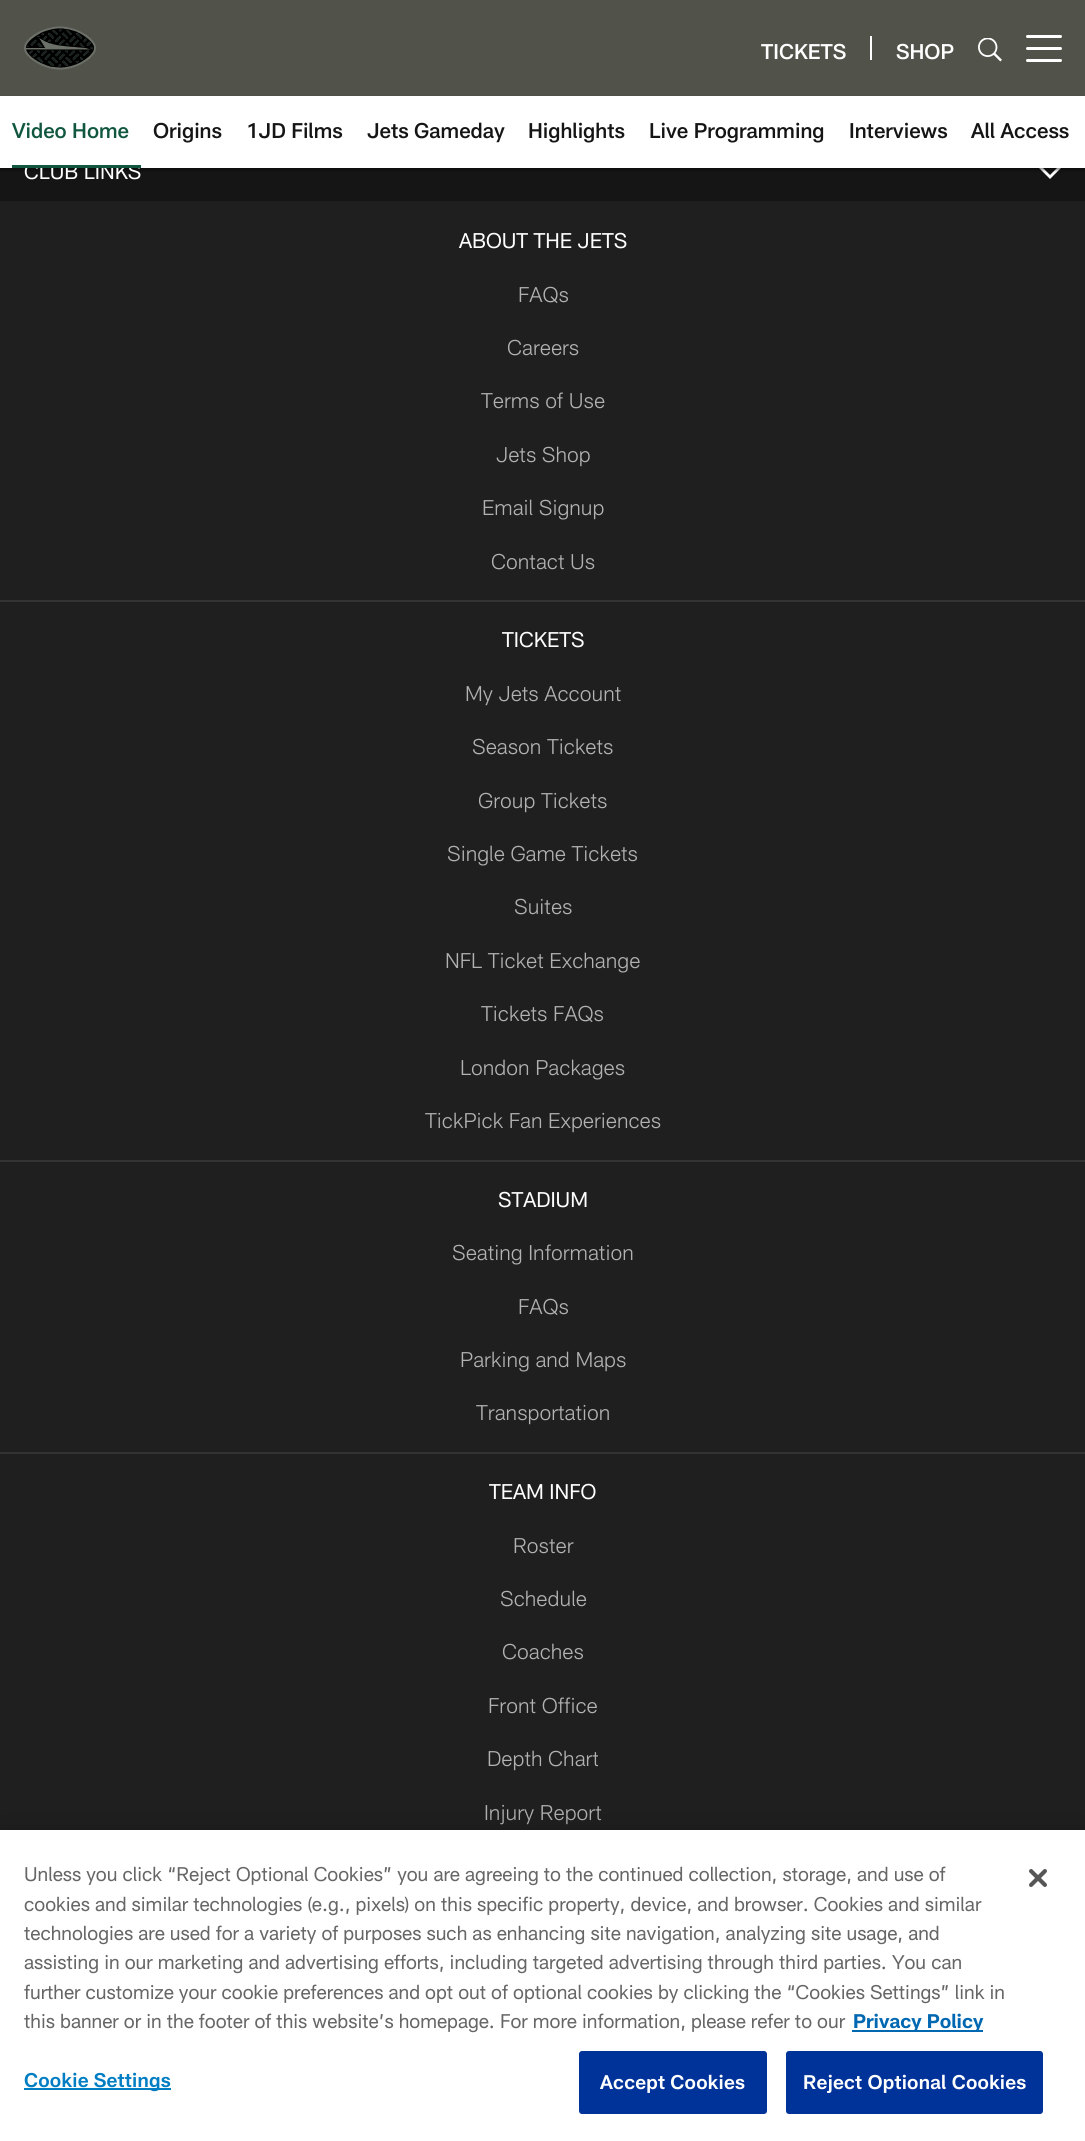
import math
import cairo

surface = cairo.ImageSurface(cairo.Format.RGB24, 1085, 2141)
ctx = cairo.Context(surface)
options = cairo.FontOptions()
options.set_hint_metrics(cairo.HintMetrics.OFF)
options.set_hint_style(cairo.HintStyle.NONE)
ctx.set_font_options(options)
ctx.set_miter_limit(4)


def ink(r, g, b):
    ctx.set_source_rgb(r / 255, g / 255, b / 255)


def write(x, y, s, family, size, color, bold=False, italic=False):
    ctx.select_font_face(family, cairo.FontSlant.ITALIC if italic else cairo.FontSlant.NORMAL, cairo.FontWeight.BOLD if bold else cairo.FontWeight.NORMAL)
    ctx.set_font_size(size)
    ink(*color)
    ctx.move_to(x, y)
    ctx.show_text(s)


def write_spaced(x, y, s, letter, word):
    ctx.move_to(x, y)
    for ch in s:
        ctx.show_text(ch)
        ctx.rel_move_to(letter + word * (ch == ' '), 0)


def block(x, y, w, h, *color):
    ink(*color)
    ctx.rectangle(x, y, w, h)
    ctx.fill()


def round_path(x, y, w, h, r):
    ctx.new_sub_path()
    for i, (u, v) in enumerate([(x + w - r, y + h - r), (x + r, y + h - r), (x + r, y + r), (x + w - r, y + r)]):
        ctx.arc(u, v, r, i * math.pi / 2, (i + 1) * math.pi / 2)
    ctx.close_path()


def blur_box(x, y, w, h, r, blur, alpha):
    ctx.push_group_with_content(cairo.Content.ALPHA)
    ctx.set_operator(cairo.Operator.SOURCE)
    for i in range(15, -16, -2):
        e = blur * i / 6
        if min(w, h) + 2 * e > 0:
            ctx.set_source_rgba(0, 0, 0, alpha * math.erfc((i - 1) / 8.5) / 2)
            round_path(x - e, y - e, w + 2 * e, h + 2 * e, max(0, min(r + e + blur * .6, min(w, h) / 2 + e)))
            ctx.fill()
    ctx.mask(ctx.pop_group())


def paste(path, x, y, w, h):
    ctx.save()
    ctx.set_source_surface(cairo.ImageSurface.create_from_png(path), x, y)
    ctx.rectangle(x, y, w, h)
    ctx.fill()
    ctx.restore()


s1 = dict(family="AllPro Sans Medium", size=21, color=(255, 255, 255))
s2 = dict(family="AllPro Sans", size=21, color=(255, 255, 255))
s3 = dict(family="AllPro Sans Medium", size=21, color=(17, 87, 64))
s4 = dict(family="AllPro Sans Medium", size=21, color=(21, 21, 21))
s5 = dict(family="AllPro Sans Light", size=21, color=(178, 178, 178))
s6 = dict(family="AllPro Sans", size=19.5, color=(102, 102, 102))
s7 = dict(family="AllPro Sans", size=19.5, color=(0, 103, 177), bold=True)

ink(31, 31, 31)
ctx.paint()
block(0, 0, 1085, 96, 81, 83, 74)
paste("pic1.png", 24, 26, 72, 44)
write(761, 59, "TICKETS", **s1)
block(870, 36, 2, 24, 255, 255, 255)
write(896, 59, "SHOP", **s1)
paste("pic2.png", 978, 38, 24, 24)
round_path(1026, 47, 36, 3, 1.5)
ctx.fill()
round_path(1026, 35, 36, 3, 1.5)
ctx.fill()
round_path(1026, 59, 36, 3, 1.5)
ctx.fill()
block(0, 168, 1085, 33, 21, 21, 21)
ink(255, 255, 255)
ctx.new_path()
ctx.move_to(1050, 175)
ctx.line_to(1060, 165)
ctx.line_to(1062, 167)
ctx.line_to(1050, 179)
ctx.line_to(1038, 167)
ctx.line_to(1040, 165)
ctx.line_to(1041, 166)
ctx.close_path()
ctx.fill()
ink(0, 0, 0)
blur_box(0, 98, 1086, 72, 0, 1.5, 0.47)
block(0, 96, 1085, 72, 255, 255, 255)
write(24, 179, "CLUB LINKS", **s2)
block(12, 165, 129, 3, 17, 87, 64)
write(12, 138, "Video Home", **s3)
write(153, 138, "Origins", **s4)
write(246, 138, "1JD Films", **s4)
write(367, 138, "Jets Gameday", **s4)
write(528, 138, "Highlights", **s4)
write(649, 138, "Live Programming", **s4)
write(849, 138, "Interviews", **s4)
write(971, 138, "All Access", **s4)
write(459, 248, "ABOUT THE JETS", **s2)
write(518, 302, "FAQs", **s5)
write(507, 355, "Careers", **s5)
write(481, 408, "Terms of Use", **s5)
write(496, 462, "Jets Shop", **s5)
write(482, 515, "Email Signup", **s5)
write(491, 569, "Contact Us", **s5)
block(0, 600, 1085, 2, 51, 51, 51)
write(502, 647, "TICKETS", **s2)
write(465, 701, "My Jets Account", **s5)
write(472, 754, "Season Tickets", **s5)
write(478, 808, "Group Tickets", **s5)
write(447, 861, "Single Game Tickets", **s5)
write(514, 914, "Suites", **s5)
write(445, 968, "NFL Ticket Exchange", **s5)
write(481, 1021, "Tickets FAQs", **s5)
write(460, 1075, "London Packages", **s5)
write(425, 1128, "TickPick Fan Experiences", **s5)
block(0, 1160, 1085, 2, 51, 51, 51)
write(498, 1207, "STADIUM", **s2)
write(452, 1260, "Seating Information", **s5)
write(518, 1314, "FAQs", **s5)
write(460, 1367, "Parking and Maps", **s5)
write(476, 1420, "Transportation", **s5)
block(0, 1452, 1085, 2, 51, 51, 51)
write(489, 1499, "TEAM INFO", **s2)
write(513, 1553, "Roster", **s5)
write(500, 1606, "Schedule", **s5)
write(502, 1659, "Coaches", **s5)
write(488, 1713, "Front Office", **s5)
write(487, 1766, "Depth Chart", **s5)
write(484, 1820, "Injury Report", **s5)
ink(0, 0, 0)
blur_box(0, 1830, 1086, 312, 0, 13.5, 0.2)
block(0, 1830, 1085, 311, 255, 255, 255)
write(24, 1881, "Unless you click “Reject Optional Cookies” you are agreeing to the continued collection, storage, and use of", **s6)
write(24, 1911, "cookies and similar technologies (e.g., pixels) on this specific property, device, and browser. Cookies and similar", **s6)
write(24, 1940, "technologies are used for a variety of purposes such as enhancing site navigation, analyzing site usage, and", **s6)
write(24, 1969, "assisting in our marketing and advertising efforts, including targeted advertising through third parties. You can", **s6)
write(24, 1999, "further customize your cookie preferences and opt out of optional cookies by clicking the “Cookies Settings” link in", **s6)
write(24, 2028, "this banner or in the footer of this website’s homepage. For more information, please refer to our", **s6)
block(852, 2030, 131, 2, 0, 103, 177)
write(853, 2028, "Privacy Policy", **s7)
block(24, 2088, 147, 2, 0, 125, 195)
ctx.select_font_face("AllPro Sans SemiBold")
write_spaced(24, 2087, "Cookie Settings", 0.2, 0)
ink(0, 51, 153)
round_path(580, 2052, 186, 61, 2)
ctx.fill_preserve()
ctx.stroke()
ink(255, 255, 255)
write_spaced(600, 2089, "Accept Cookies", 0.2, 0)
ink(0, 51, 153)
round_path(787, 2052, 255, 61, 2)
ctx.fill_preserve()
ctx.stroke()
ink(255, 255, 255)
write_spaced(803, 2089, "Reject Optional Cookies", 0.2, 0)
paste("pic3.png", 1029, 1869, 18, 18)
surface.write_to_png("screenshot.png")
